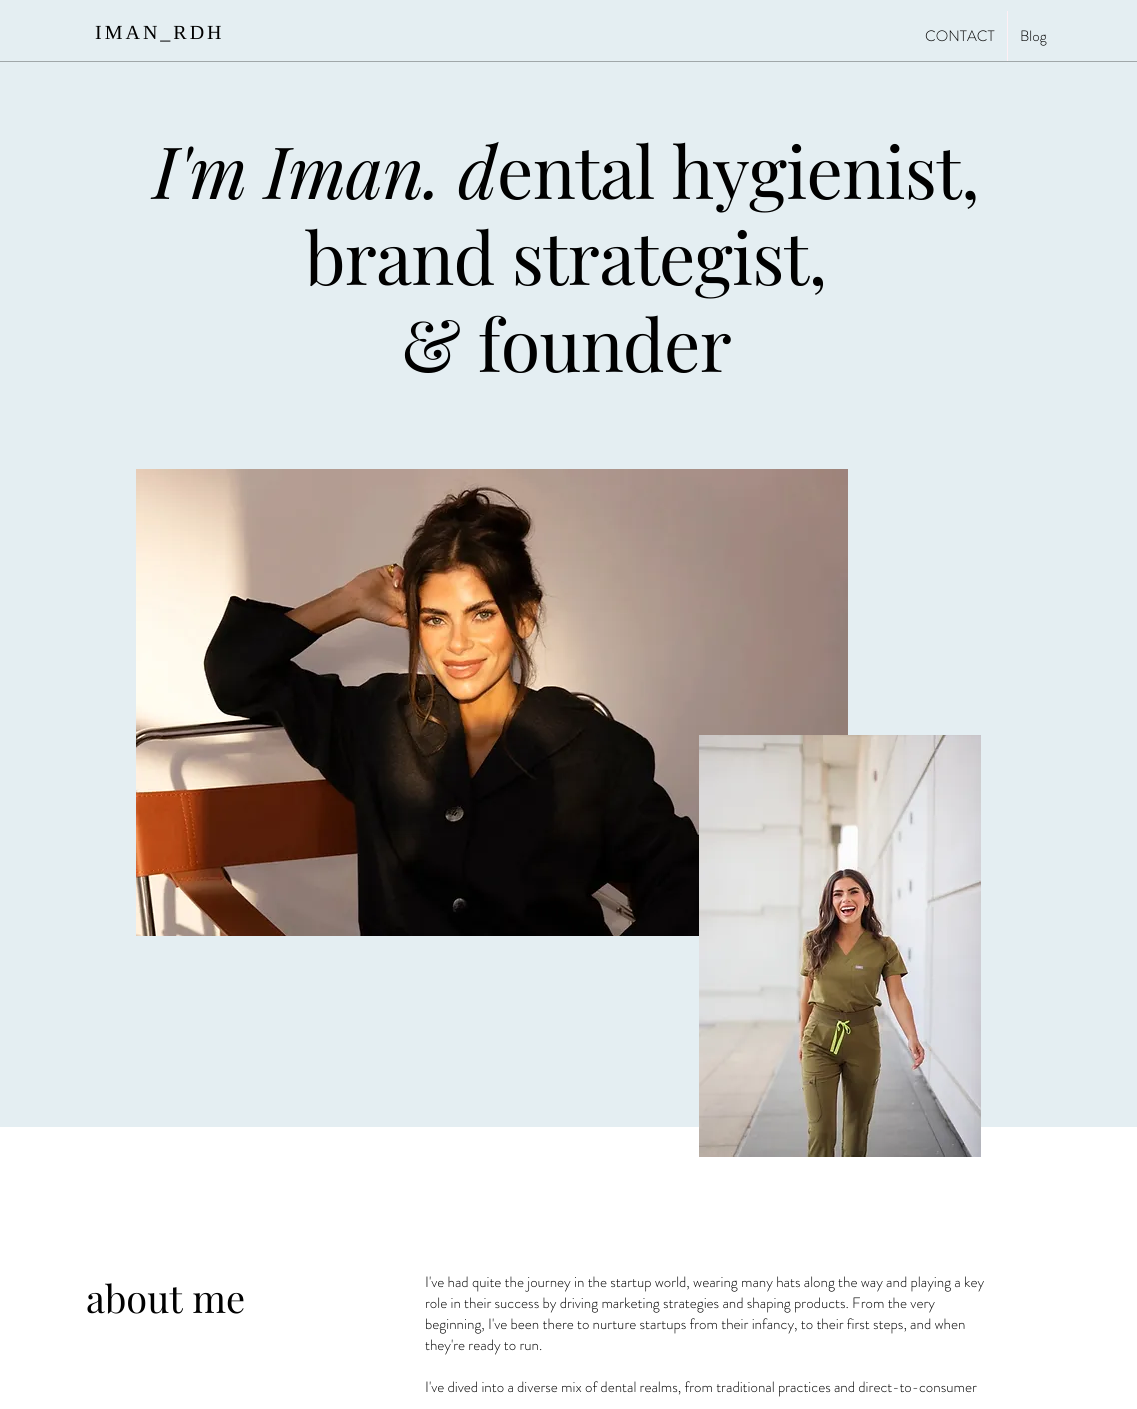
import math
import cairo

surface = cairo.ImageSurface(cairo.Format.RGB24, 1137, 1409)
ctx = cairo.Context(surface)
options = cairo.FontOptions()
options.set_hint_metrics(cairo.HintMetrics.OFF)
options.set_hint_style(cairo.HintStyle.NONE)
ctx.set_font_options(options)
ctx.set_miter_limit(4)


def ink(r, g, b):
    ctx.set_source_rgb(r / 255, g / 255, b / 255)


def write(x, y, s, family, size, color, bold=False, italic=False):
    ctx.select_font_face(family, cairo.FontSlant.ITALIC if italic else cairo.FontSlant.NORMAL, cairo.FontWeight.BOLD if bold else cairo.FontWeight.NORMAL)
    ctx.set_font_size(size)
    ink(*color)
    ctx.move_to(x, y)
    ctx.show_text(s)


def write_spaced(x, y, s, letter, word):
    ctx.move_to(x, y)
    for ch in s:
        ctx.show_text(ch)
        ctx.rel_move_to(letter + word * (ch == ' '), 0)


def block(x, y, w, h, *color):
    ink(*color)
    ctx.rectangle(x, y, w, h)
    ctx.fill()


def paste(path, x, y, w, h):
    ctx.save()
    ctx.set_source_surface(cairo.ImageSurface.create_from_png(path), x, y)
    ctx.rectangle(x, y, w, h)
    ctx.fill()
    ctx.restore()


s1 = dict(family="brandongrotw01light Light", size=15, color=(0, 0, 0))
s2 = dict(family="Playfair Display", size=38, color=(0, 0, 0))

ink(228, 238, 242)
ctx.paint()
ctx.select_font_face("Liberation Serif")
ctx.set_font_size(20)
ink(0, 0, 0)
write_spaced(95, 39, "IMAN_RDH", 3, 0)
write(925, 41, "CONTACT", **s1)
block(1007, 11, 1, 50, 255, 240, 245)
write(1020, 41, "Blog", **s1)
block(0, 61, 1137, 1, 160, 167, 169)
ctx.select_font_face("Playfair Display", cairo.FontSlant.ITALIC)
ctx.set_font_size(72)
ink(0, 0, 0)
write_spaced(153, 199, "I'm Iman. d", -0.75, 0)
ctx.select_font_face("Playfair Display")
write_spaced(497, 199, "ental hygienist,", -0.75, 0)
write_spaced(305, 285, "brand strategist,", -0.75, 0)
write_spaced(401, 372, "& founder", -0.75, 0)
block(0, 1127, 1137, 282, 255, 255, 255)
paste("pic1.png", 136, 469, 712, 467)
paste("pic2.png", 699, 735, 282, 422)
write(86, 1313, "about me", **s2)
write(425, 1287, "I've had quite the journey in the startup world, wearing many hats along the way and playing a key", **s1)
write(425, 1308, "role in their success by driving marketing strategies and shaping products. From the very", **s1)
write(425, 1329, "beginning, I've been there to nurture startups from their infancy, to their first steps, and when", **s1)
write(425, 1350, "they're ready to run.", **s1)
write(425, 1392, "I've dived into a diverse mix of dental realms, from traditional practices and direct-to-consumer", **s1)
surface.write_to_png("screenshot.png")
